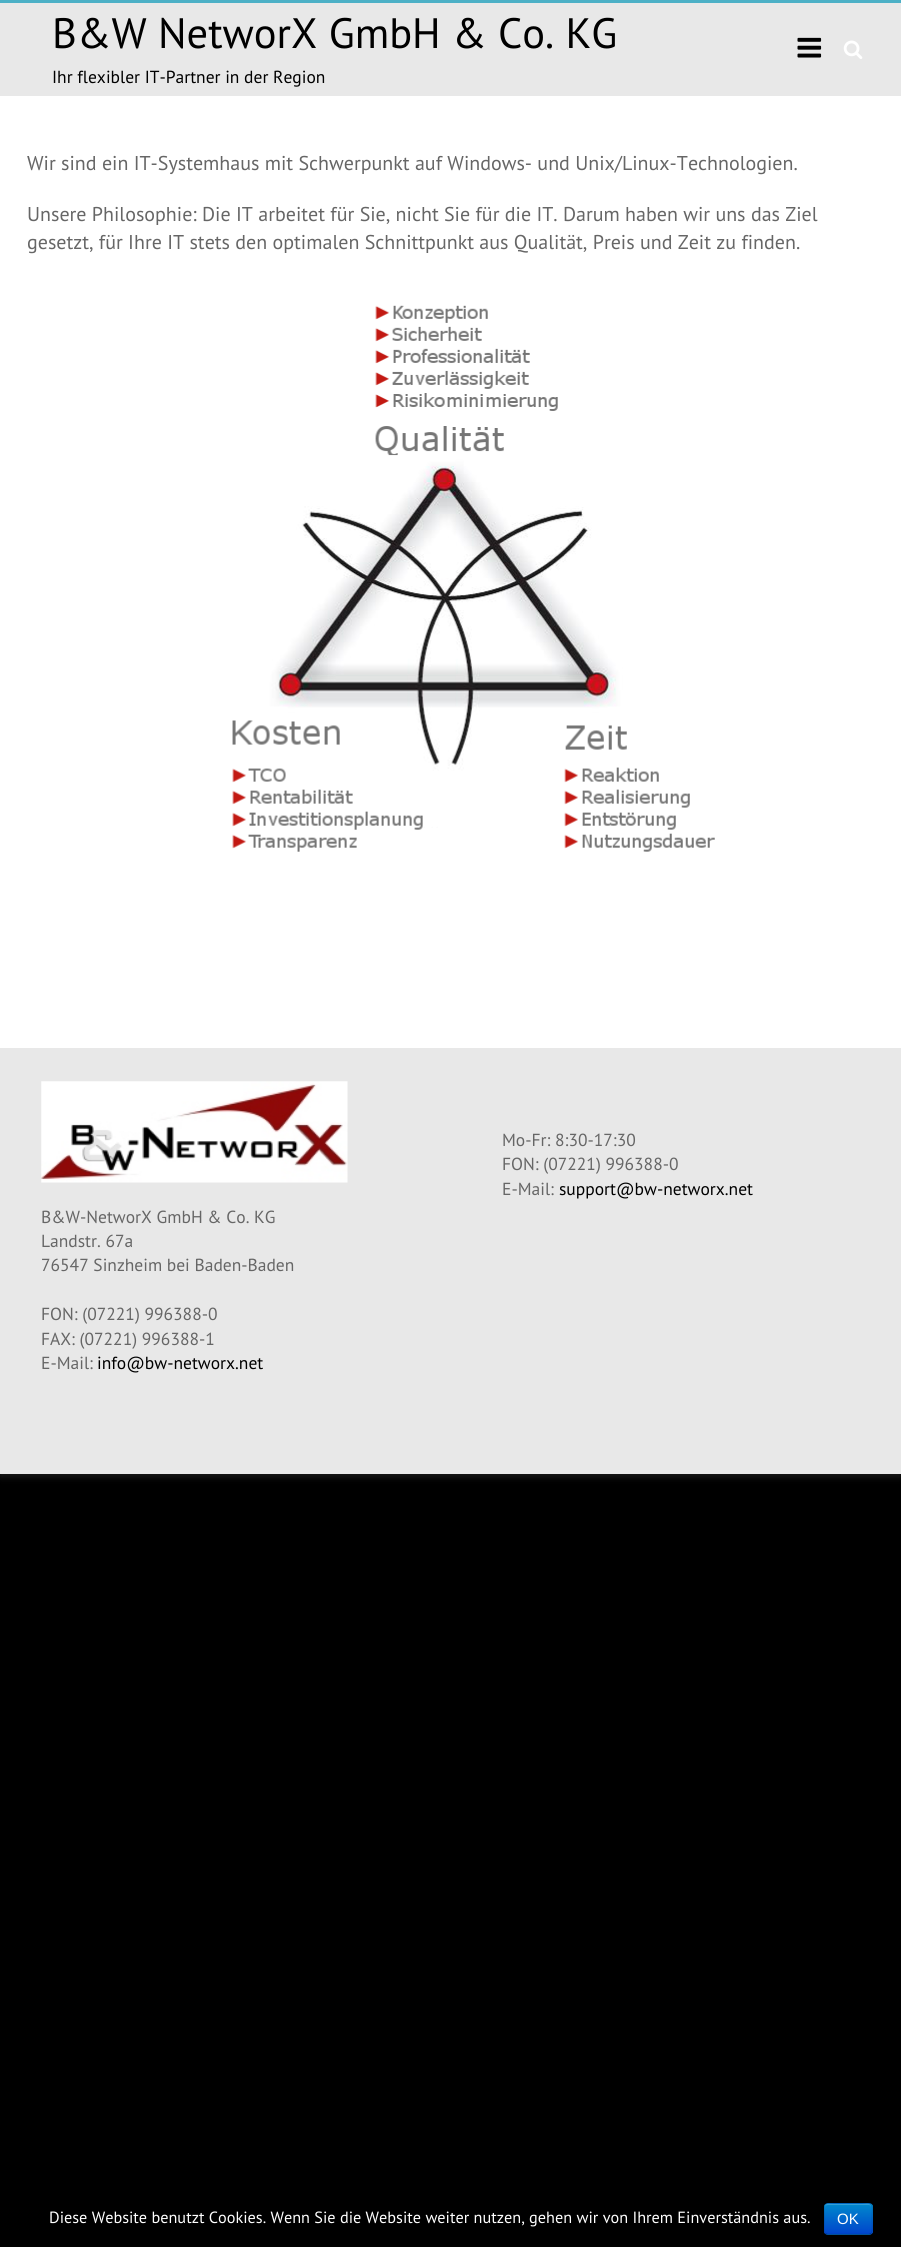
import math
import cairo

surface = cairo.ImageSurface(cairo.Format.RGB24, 901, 2247)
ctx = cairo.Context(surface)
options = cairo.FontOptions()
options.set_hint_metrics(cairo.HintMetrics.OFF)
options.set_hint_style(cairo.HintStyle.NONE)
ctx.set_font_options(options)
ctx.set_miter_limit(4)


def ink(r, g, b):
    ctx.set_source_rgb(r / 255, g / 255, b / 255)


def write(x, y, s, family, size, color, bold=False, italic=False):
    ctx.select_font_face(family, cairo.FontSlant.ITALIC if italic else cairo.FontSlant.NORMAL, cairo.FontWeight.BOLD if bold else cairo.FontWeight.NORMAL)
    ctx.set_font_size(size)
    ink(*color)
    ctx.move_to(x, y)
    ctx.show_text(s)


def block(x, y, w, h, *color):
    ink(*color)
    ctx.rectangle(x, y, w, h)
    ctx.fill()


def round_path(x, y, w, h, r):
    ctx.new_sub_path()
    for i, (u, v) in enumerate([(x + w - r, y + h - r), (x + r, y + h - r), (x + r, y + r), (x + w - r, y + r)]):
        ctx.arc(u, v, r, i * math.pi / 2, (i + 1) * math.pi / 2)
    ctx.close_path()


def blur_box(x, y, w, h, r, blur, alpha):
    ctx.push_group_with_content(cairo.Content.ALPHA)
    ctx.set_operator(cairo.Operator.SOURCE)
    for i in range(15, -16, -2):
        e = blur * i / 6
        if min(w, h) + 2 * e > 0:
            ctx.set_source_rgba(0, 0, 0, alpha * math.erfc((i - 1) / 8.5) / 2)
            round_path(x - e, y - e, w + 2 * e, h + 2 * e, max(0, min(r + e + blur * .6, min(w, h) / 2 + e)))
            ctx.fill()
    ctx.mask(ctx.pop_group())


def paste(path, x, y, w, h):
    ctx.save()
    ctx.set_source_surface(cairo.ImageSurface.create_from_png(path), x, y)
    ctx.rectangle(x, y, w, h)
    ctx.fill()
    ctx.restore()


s1 = dict(family="PT Sans", size=42.5, color=(0, 0, 0))
s2 = dict(family="PT Sans", size=17.5, color=(0, 0, 0))
s3 = dict(family="PT Sans", size=20, color=(102, 102, 102))
s4 = dict(family="PT Sans", size=17.5, color=(102, 102, 102))
s5 = dict(family="PT Sans", size=16.25, color=(255, 255, 255))
s6 = dict(family="Liberation Sans", size=15, color=(255, 255, 255))

ink(0, 0, 0)
ctx.paint()
ink(100, 100, 100)
blur_box(0, 3, 901, 1473, 0, 4, 0.3)
block(0, 96, 901, 952, 255, 255, 255)
block(0, 3, 901, 93, 232, 232, 232)
block(0, 0, 901, 3, 76, 176, 198)
write(52, 48, "B&W NetworX GmbH & Co. KG", **s1)
write(52, 83, "Ihr flexibler IT-Partner in der Region", **s2)
paste("pic1.png", 797, 37, 25, 21)
paste("pic2.png", 843, 40, 20, 19)
write(27, 170, "Wir sind ein IT-Systemhaus mit Schwerpunkt auf Windows- und Unix/Linux-Technologien.", **s3)
write(27, 221, "Unsere Philosophie: Die IT arbeitet für Sie, nicht Sie für die IT. Darum haben wir uns das Ziel", **s3)
write(27, 249, "gesetzt, für Ihre IT stets den optimalen Schnittpunkt aus Qualität, Preis und Zeit zu finden.", **s3)
paste("pic3.png", 232, 305, 483, 547)
block(0, 1048, 901, 426, 232, 232, 232)
write(502, 1146, "Mo-Fr: 8:30-17:30", **s4)
write(502, 1170, "FON: (07221) 996388-0", **s4)
write(502, 1195, "E-Mail:", **s4)
write(559, 1195, "support@bw-networx.net", **s2)
paste("pic4.png", 41, 1081, 307, 102)
write(41, 1223, "B&W-NetworX GmbH & Co. KG", **s4)
write(41, 1247, "Landstr. 67a", **s4)
write(41, 1271, "76547 Sinzheim bei Baden-Baden", **s4)
write(41, 1320, "FON: (07221) 996388-0", **s4)
write(41, 1345, "FAX: (07221) 996388-1", **s4)
write(41, 1369, "E-Mail:", **s4)
write(97, 1369, "info@bw-networx.net", **s2)
write(49, 2223, "Diese Website benutzt Cookies. Wenn Sie die Website weiter nutzen, gehen wir von Ihrem Einverständnis aus.", **s5)
ink(0, 109, 204)
round_path(824, 2203, 49, 32, 4)
ctx.fill()
ctx.save()
round_path(824, 2203, 49, 32, 4)
ctx.clip()
gradient = cairo.LinearGradient(848, 2204, 848, 2234)
gradient.add_color_stop_rgba(0, 0, 0.533, 0.8, 1)
gradient.add_color_stop_rgba(1, 0, 0.267, 0.8, 1)
ctx.set_source(gradient)
ctx.rectangle(824, 2204, 49, 30)
ctx.fill()
ctx.restore()
ink(51, 159, 214)
ctx.new_path()
ctx.move_to(828, 2205)
ctx.line_to(869, 2205)
ctx.curve_to(870, 2205, 871, 2206, 871, 2208)
ctx.curve_to(871, 2202, 867, 2204, 862, 2204)
ctx.line_to(834, 2204)
ctx.curve_to(829, 2204, 825, 2202, 825, 2208)
ctx.curve_to(825, 2206, 826, 2205, 828, 2205)
ctx.close_path()
ctx.fill()
ctx.new_path()
ctx.move_to(871, 2233.5)
ctx.line_to(869, 2234.5)
ctx.line_to(827.5, 2234.5)
ctx.line_to(825.5, 2233.5)
ctx.set_source_rgba(0, 0, 0, 0.25)
ctx.set_line_width(1.2)
ctx.stroke()
ctx.new_path()
ctx.move_to(825.5, 2233.5)
ctx.curve_to(823, 2231.5, 824.5, 2221.5, 824.5, 2219)
ctx.curve_to(824.5, 2204, 821, 2203, 834.5, 2203)
ctx.line_to(862, 2203)
ctx.curve_to(875.5, 2203, 872, 2204, 872, 2219)
ctx.curve_to(872, 2221.5, 873, 2231.5, 871, 2233.5)
ctx.set_source_rgba(0, 0, 0, 0.1)
ctx.stroke()
write(837, 2224, "OK", **s6)
surface.write_to_png("screenshot.png")
